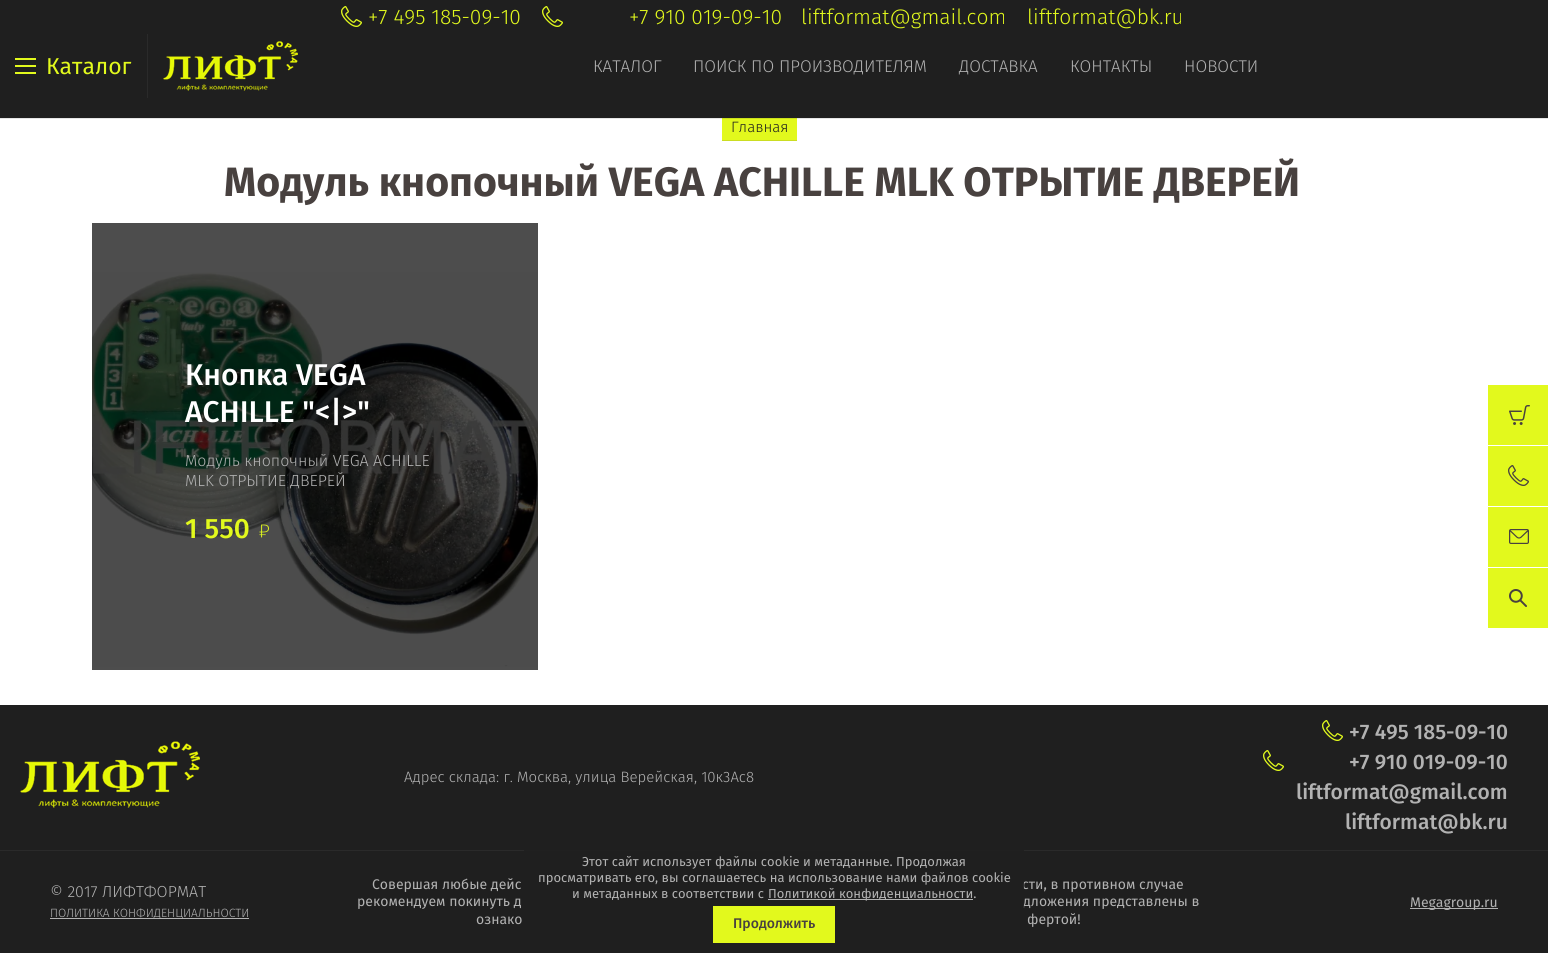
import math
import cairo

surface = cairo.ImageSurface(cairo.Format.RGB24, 1548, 953)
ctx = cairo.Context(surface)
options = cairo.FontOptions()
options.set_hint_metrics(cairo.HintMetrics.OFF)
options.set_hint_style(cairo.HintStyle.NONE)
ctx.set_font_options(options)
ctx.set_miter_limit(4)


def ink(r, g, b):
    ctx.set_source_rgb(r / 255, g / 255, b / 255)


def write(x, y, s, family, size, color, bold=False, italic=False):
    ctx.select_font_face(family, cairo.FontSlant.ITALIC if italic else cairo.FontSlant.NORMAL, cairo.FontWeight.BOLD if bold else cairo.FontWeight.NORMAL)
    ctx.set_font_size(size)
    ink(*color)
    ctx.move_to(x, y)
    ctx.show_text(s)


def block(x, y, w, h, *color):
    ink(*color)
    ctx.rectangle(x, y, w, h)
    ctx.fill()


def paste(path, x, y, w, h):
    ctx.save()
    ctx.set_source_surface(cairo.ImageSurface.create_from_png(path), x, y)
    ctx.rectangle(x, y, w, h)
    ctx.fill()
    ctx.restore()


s1 = dict(family="Fira Sans Light", size=21, color=(226, 249, 29))
s2 = dict(family="Fira Sans", size=23, color=(226, 249, 29))
s3 = dict(family="Fira Sans Light", size=17, color=(178, 178, 178))
s4 = dict(family="Fira Sans Light", size=15, color=(31, 31, 31))
s5 = dict(family="Fira Sans", size=41, color=(72, 65, 63), bold=True)
s6 = dict(family="Fira Sans Medium", size=30, color=(255, 255, 255))
s7 = dict(family="Fira Sans Light", size=16, color=(178, 178, 178))
s8 = dict(family="Fira Sans Medium", size=28, color=(226, 249, 29))
s9 = dict(family="Fira Sans Light", size=15, color=(178, 178, 178))
s10 = dict(family="Fira Sans Medium", size=21, color=(178, 178, 178))
s11 = dict(family="Fira Sans Light", size=12, color=(178, 178, 178))
s12 = dict(family="Fira Sans", size=14, color=(178, 178, 178))
s13 = dict(family="Fira Sans", size=13, color=(178, 178, 178))
s14 = dict(family="Fira Sans Medium", size=14, color=(72, 65, 63))

ink(255, 255, 255)
ctx.paint()
block(0, 118, 1548, 1, 230, 230, 230)
block(92, 223, 446, 447, 77, 77, 77)
block(0, 0, 1548, 118, 31, 31, 31)
paste("pic1.png", 341, 6, 21, 21)
write(368, 24, "+7 495 185-09-10", **s1)
paste("pic1.png", 542, 6, 21, 21)
write(629, 24, "+7 910 019-09-10", **s1)
write(801, 24, "liftformat@gmail.com", **s1)
write(1027, 24, "liftformat@bk.ru", **s1)
block(147, 34, 1, 64, 42, 42, 42)
block(15, 58, 21, 2, 226, 249, 29)
block(15, 65, 21, 2, 226, 249, 29)
block(15, 72, 21, 2, 226, 249, 29)
write(46, 74, "Каталог", **s2)
paste("pic2.png", 163, 41, 135, 50)
write(593, 72, "КАТАЛОГ", **s3)
write(693, 72, "ПОИСК ПО ПРОИЗВОДИТЕЛЯМ", **s3)
write(959, 72, "ДОСТАВКА", **s3)
write(1070, 72, "КОНТАКТЫ", **s3)
write(1184, 72, "НОВОСТИ", **s3)
block(722, 119, 75, 21, 226, 249, 29)
write(731, 132, "Главная", **s4)
block(722, 118, 75, 1, 203, 224, 26)
block(722, 140, 75, 1, 203, 221, 34)
write(224, 196, "Модуль кнопочный VEGA ACHILLE MLK ОТРЫТИЕ ДВЕРЕЙ", **s5)
paste("pic3.png", 92, 272, 446, 395)
write(185, 385, "Кнопка VEGA", **s6)
write(185, 422, "ACHILLE \"<|>\"", **s6)
write(185, 466, "Модуль кнопочный VEGA ACHILLE", **s7)
write(185, 486, "MLK ОТРЫТИЕ ДВЕРЕЙ", **s7)
write(185, 538, "1 550", **s8)
paste("pic4.png", 259, 524, 10, 14)
block(0, 705, 1548, 248, 31, 31, 31)
block(0, 850, 1548, 1, 42, 42, 42)
paste("pic5.png", 20, 741, 180, 67)
write(404, 782, "Адрес склада: г. Москва, улица Верейская, 10к3Ас8", **s9)
paste("pic1.png", 1322, 720, 21, 21)
write(1349, 739, "+7 495 185-09-10", **s10)
paste("pic1.png", 1263, 750, 21, 21)
write(1349, 769, "+7 910 019-09-10", **s10)
write(1296, 799, "liftformat@gmail.com", **s10)
write(1345, 829, "liftformat@bk.ru", **s10)
write(50, 897, "© 2017 ЛИФТФОРМАТ", **s7)
block(50, 918, 199, 1, 178, 178, 178)
write(50, 917, "ПОЛИТИКА КОНФИДЕНЦИАЛЬНОСТИ", **s11)
write(372, 889, "Совершая любые дейс", **s12)
write(1022, 889, "сти, в противном случае", **s12)
write(357, 906, "рекомендуем покинуть д", **s12)
write(1023, 906, "дложения представлены в", **s12)
write(476, 924, "ознако", **s12)
write(1027, 924, "фертой!", **s12)
block(1410, 908, 88, 1, 178, 178, 178)
write(1410, 907, "Megagroup.ru", **s12)
block(1488, 385, 60, 60, 226, 249, 29)
paste("pic6.png", 1509, 405, 21, 20)
block(1488, 446, 60, 60, 226, 249, 29)
paste("pic7.png", 1508, 465, 21, 21)
block(1488, 507, 60, 60, 226, 249, 29)
paste("pic8.png", 1509, 529, 20, 15)
block(1488, 568, 60, 60, 226, 249, 29)
paste("pic9.png", 1509, 589, 18, 18)
ctx.set_source_rgba(0.122, 0.122, 0.122, 0.9)
ctx.rectangle(524, 850, 500, 59)
ctx.fill()
write(582, 866, "Этот сайт использует файлы cookie и метаданные. Продолжая", **s13)
write(538, 882, "просматривать его, вы соглашаетесь на использование нами файлов cookie", **s13)
write(572, 898, "и метаданных в соответствии с", **s13)
block(768, 899, 205, 1, 178, 178, 178)
write(768, 898, "Политикой конфиденциальности.", **s13)
block(713, 906, 122, 37, 226, 249, 29)
write(733, 928, "Продолжить", **s14)
surface.write_to_png("screenshot.png")
